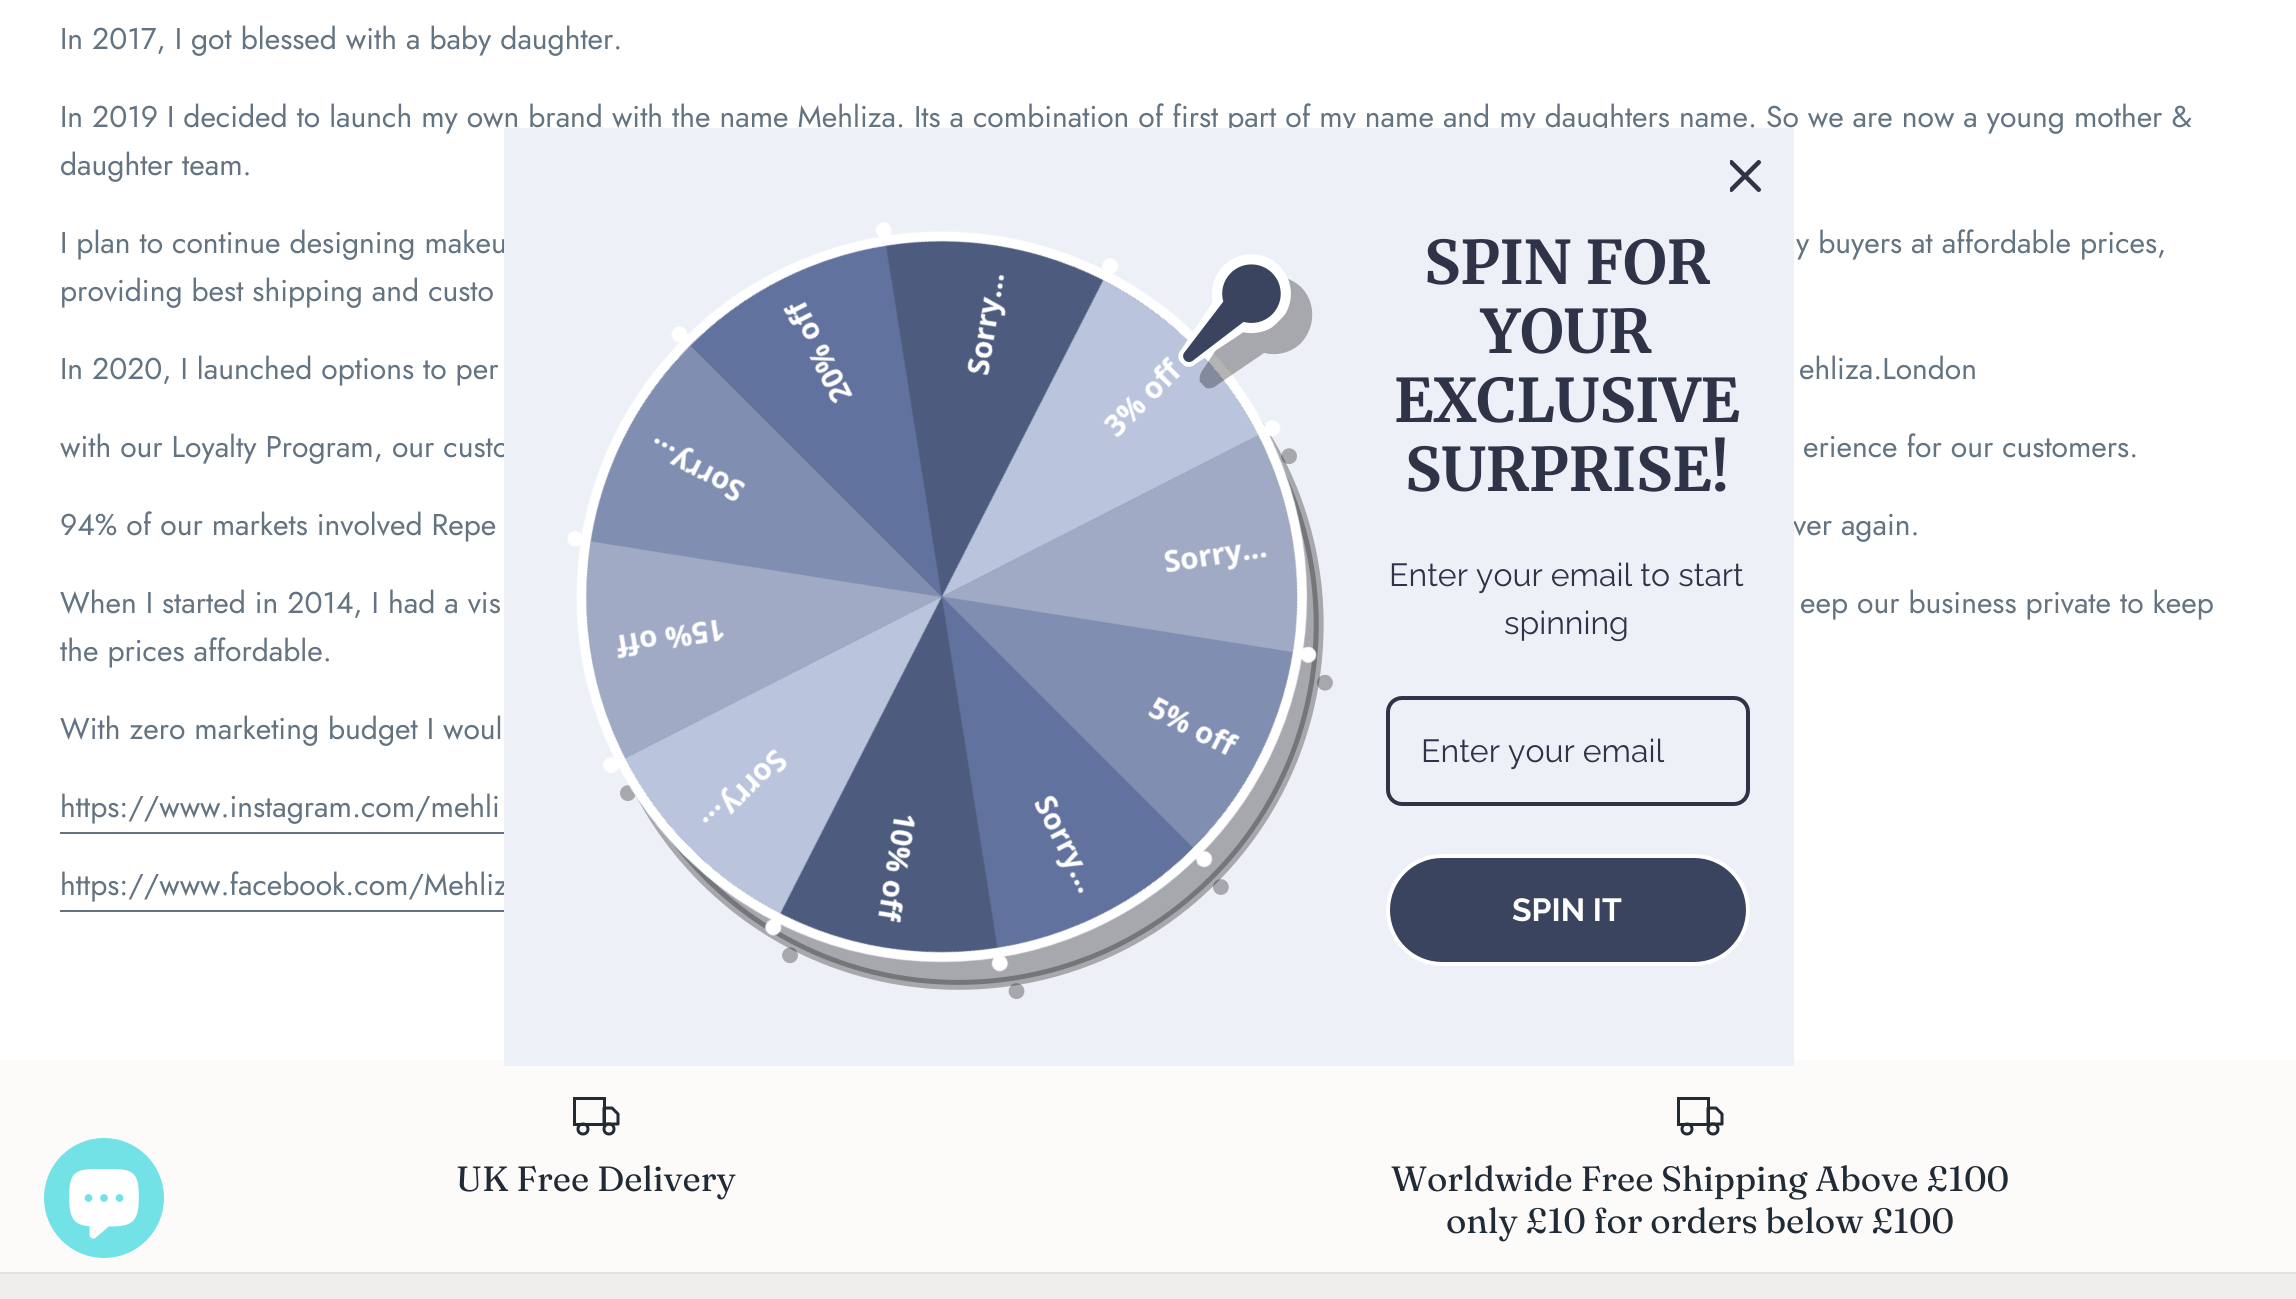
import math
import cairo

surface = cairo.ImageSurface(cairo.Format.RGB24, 2296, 1299)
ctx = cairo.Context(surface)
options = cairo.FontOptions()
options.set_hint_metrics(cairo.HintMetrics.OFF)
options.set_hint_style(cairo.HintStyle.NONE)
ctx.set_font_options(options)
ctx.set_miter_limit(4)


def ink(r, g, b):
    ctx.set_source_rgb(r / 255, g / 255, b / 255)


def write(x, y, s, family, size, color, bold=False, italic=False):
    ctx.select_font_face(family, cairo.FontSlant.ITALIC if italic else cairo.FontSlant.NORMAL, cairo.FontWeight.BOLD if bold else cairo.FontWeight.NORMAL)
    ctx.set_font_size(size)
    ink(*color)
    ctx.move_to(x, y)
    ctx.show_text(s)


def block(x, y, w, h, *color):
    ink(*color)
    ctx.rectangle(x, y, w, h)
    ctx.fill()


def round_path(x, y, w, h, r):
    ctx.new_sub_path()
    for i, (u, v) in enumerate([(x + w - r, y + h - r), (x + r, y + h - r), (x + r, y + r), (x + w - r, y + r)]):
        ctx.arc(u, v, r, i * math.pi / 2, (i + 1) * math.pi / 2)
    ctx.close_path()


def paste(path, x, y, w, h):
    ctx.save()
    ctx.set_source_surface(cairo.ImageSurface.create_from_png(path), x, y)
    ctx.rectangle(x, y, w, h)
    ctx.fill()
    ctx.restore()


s1 = dict(family="Jost", size=30, color=(99, 115, 129))
s2 = dict(family="Merriweather", size=60, color=(46, 51, 71), bold=True)
s3 = dict(family="Raleway", size=32, color=(46, 51, 71))
s4 = dict(family="Raleway", size=32, color=(255, 255, 255), bold=True)
s5 = dict(family="Fraunces", size=35, color=(33, 43, 54))

ink(255, 255, 255)
ctx.paint()
write(60, 49, "In 2017, I got blessed with a baby daughter.", **s1)
write(60, 127, "In 2019 I decided to launch my own brand with the name Mehliza. Its a combination of first part of my name and my daughters name. So we are now a young mother &", **s1)
write(60, 175, "daughter team.", **s1)
write(60, 253, "I plan to continue designing makeu", **s1)
write(1796, 253, "y buyers at affordable prices,", **s1)
write(60, 301, "providing best shipping and custo", **s1)
write(60, 379, "In 2020, I launched options to per", **s1)
write(1799, 379, "ehliza.London", **s1)
write(60, 457, "with our Loyalty Program, our custo", **s1)
write(1803, 457, "erience for our customers.", **s1)
write(60, 535, "94% of our markets involved Repe", **s1)
write(1793, 535, "ver again.", **s1)
write(60, 613, "When I started in 2014, I had a vis", **s1)
write(1800, 613, "eep our business private to keep", **s1)
write(60, 661, "the prices affordable.", **s1)
write(60, 739, "With zero marketing budget I woul", **s1)
write(60, 817, "https://www.instagram.com/mehli", **s1)
block(60, 832, 444, 2, 99, 115, 129)
write(60, 895, "https://www.facebook.com/Mehliz", **s1)
block(60, 910, 444, 2, 99, 115, 129)
block(0, 1060, 2296, 212, 253, 251, 250)
block(504, 128, 1290, 938, 238, 240, 247)
paste("pic1.png", 1730, 160, 31, 32)
paste("pic4.png", 620, 411, 713, 588)
paste("pic2.png", 567, 222, 750, 750)
ctx.set_source_rgba(0, 0, 0, 0.3)
ctx.new_path()
ctx.move_to(1301, 343)
ctx.curve_to(1291, 353, 1277, 356, 1264, 353)
ctx.line_to(1217, 385)
ctx.curve_to(1214, 388, 1210, 389, 1206, 388)
ctx.line_to(1200, 382)
ctx.curve_to(1199, 378, 1200, 374, 1202, 371)
ctx.line_to(1234, 323)
ctx.curve_to(1232, 313, 1234, 302, 1240, 293)
ctx.line_to(1250, 283)
ctx.curve_to(1265, 272, 1287, 274, 1301, 287)
ctx.curve_to(1316, 302, 1316, 327, 1301, 343)
ctx.close_path()
ctx.fill()
paste("pic3.png", 1178, 254, 113, 113)
write(1424, 284, "SPIN FOR", **s2)
write(1481, 353, "YOUR", **s2)
write(1394, 422, "EXCLUSIVE", **s2)
write(1405, 491, "SURPRISE!", **s2)
write(1389, 586, "Enter your email to start", **s3)
write(1504, 634, "spinning", **s3)
round_path(1388, 698, 360, 106, 14)
ctx.set_line_width(4)
ctx.stroke()
write(1421, 762, "Enter your email", **s3)
ink(58, 68, 95)
round_path(1388, 856, 360, 108, 54)
ctx.fill_preserve()
ink(255, 255, 255)
ctx.stroke()
write(1512, 921, "SPIN IT", **s4)
ink(115, 226, 230)
ctx.new_path()
ctx.arc(104, 1198, 60, 0, 2 * math.pi)
ctx.fill()
paste("pic5.png", 69, 1169, 70, 70)
block(0, 1274, 2296, 25, 240, 238, 237)
ctx.rectangle(574.5, 1098.5, 30, 26)
ink(33, 43, 54)
ctx.set_line_width(3)
ctx.stroke()
ctx.new_path()
ctx.move_to(604, 1108)
ctx.line_to(612, 1108)
ctx.line_to(618, 1114)
ctx.line_to(618, 1124)
ctx.line_to(604, 1124)
ctx.close_path()
ctx.set_line_cap(cairo.LineCap.ROUND)
ctx.set_line_join(cairo.LineJoin.ROUND)
ctx.stroke()
ctx.arc(583, 1129, 5, 0, 2 * math.pi)
ctx.set_line_cap(cairo.LineCap.BUTT)
ctx.set_line_join(cairo.LineJoin.MITER)
ctx.stroke()
ctx.arc(609, 1129, 5, 0, 2 * math.pi)
ctx.stroke()
write(456, 1191, "UK Free Delivery", **s5)
ctx.rectangle(1678.5, 1098.5, 30, 26)
ctx.stroke()
ctx.new_path()
ctx.move_to(1708, 1108)
ctx.line_to(1716, 1108)
ctx.line_to(1722, 1114)
ctx.line_to(1722, 1124)
ctx.line_to(1708, 1124)
ctx.close_path()
ctx.set_line_cap(cairo.LineCap.ROUND)
ctx.set_line_join(cairo.LineJoin.ROUND)
ctx.stroke()
ctx.arc(1687, 1129, 5, 0, 2 * math.pi)
ctx.set_line_cap(cairo.LineCap.BUTT)
ctx.set_line_join(cairo.LineJoin.MITER)
ctx.stroke()
ctx.arc(1713, 1129, 5, 0, 2 * math.pi)
ctx.stroke()
write(1391, 1191, "Worldwide Free Shipping Above £100", **s5)
write(1446, 1233, "only £10 for orders below £100", **s5)
block(0, 1272, 2296, 2, 226, 226, 226)
surface.write_to_png("screenshot.png")
